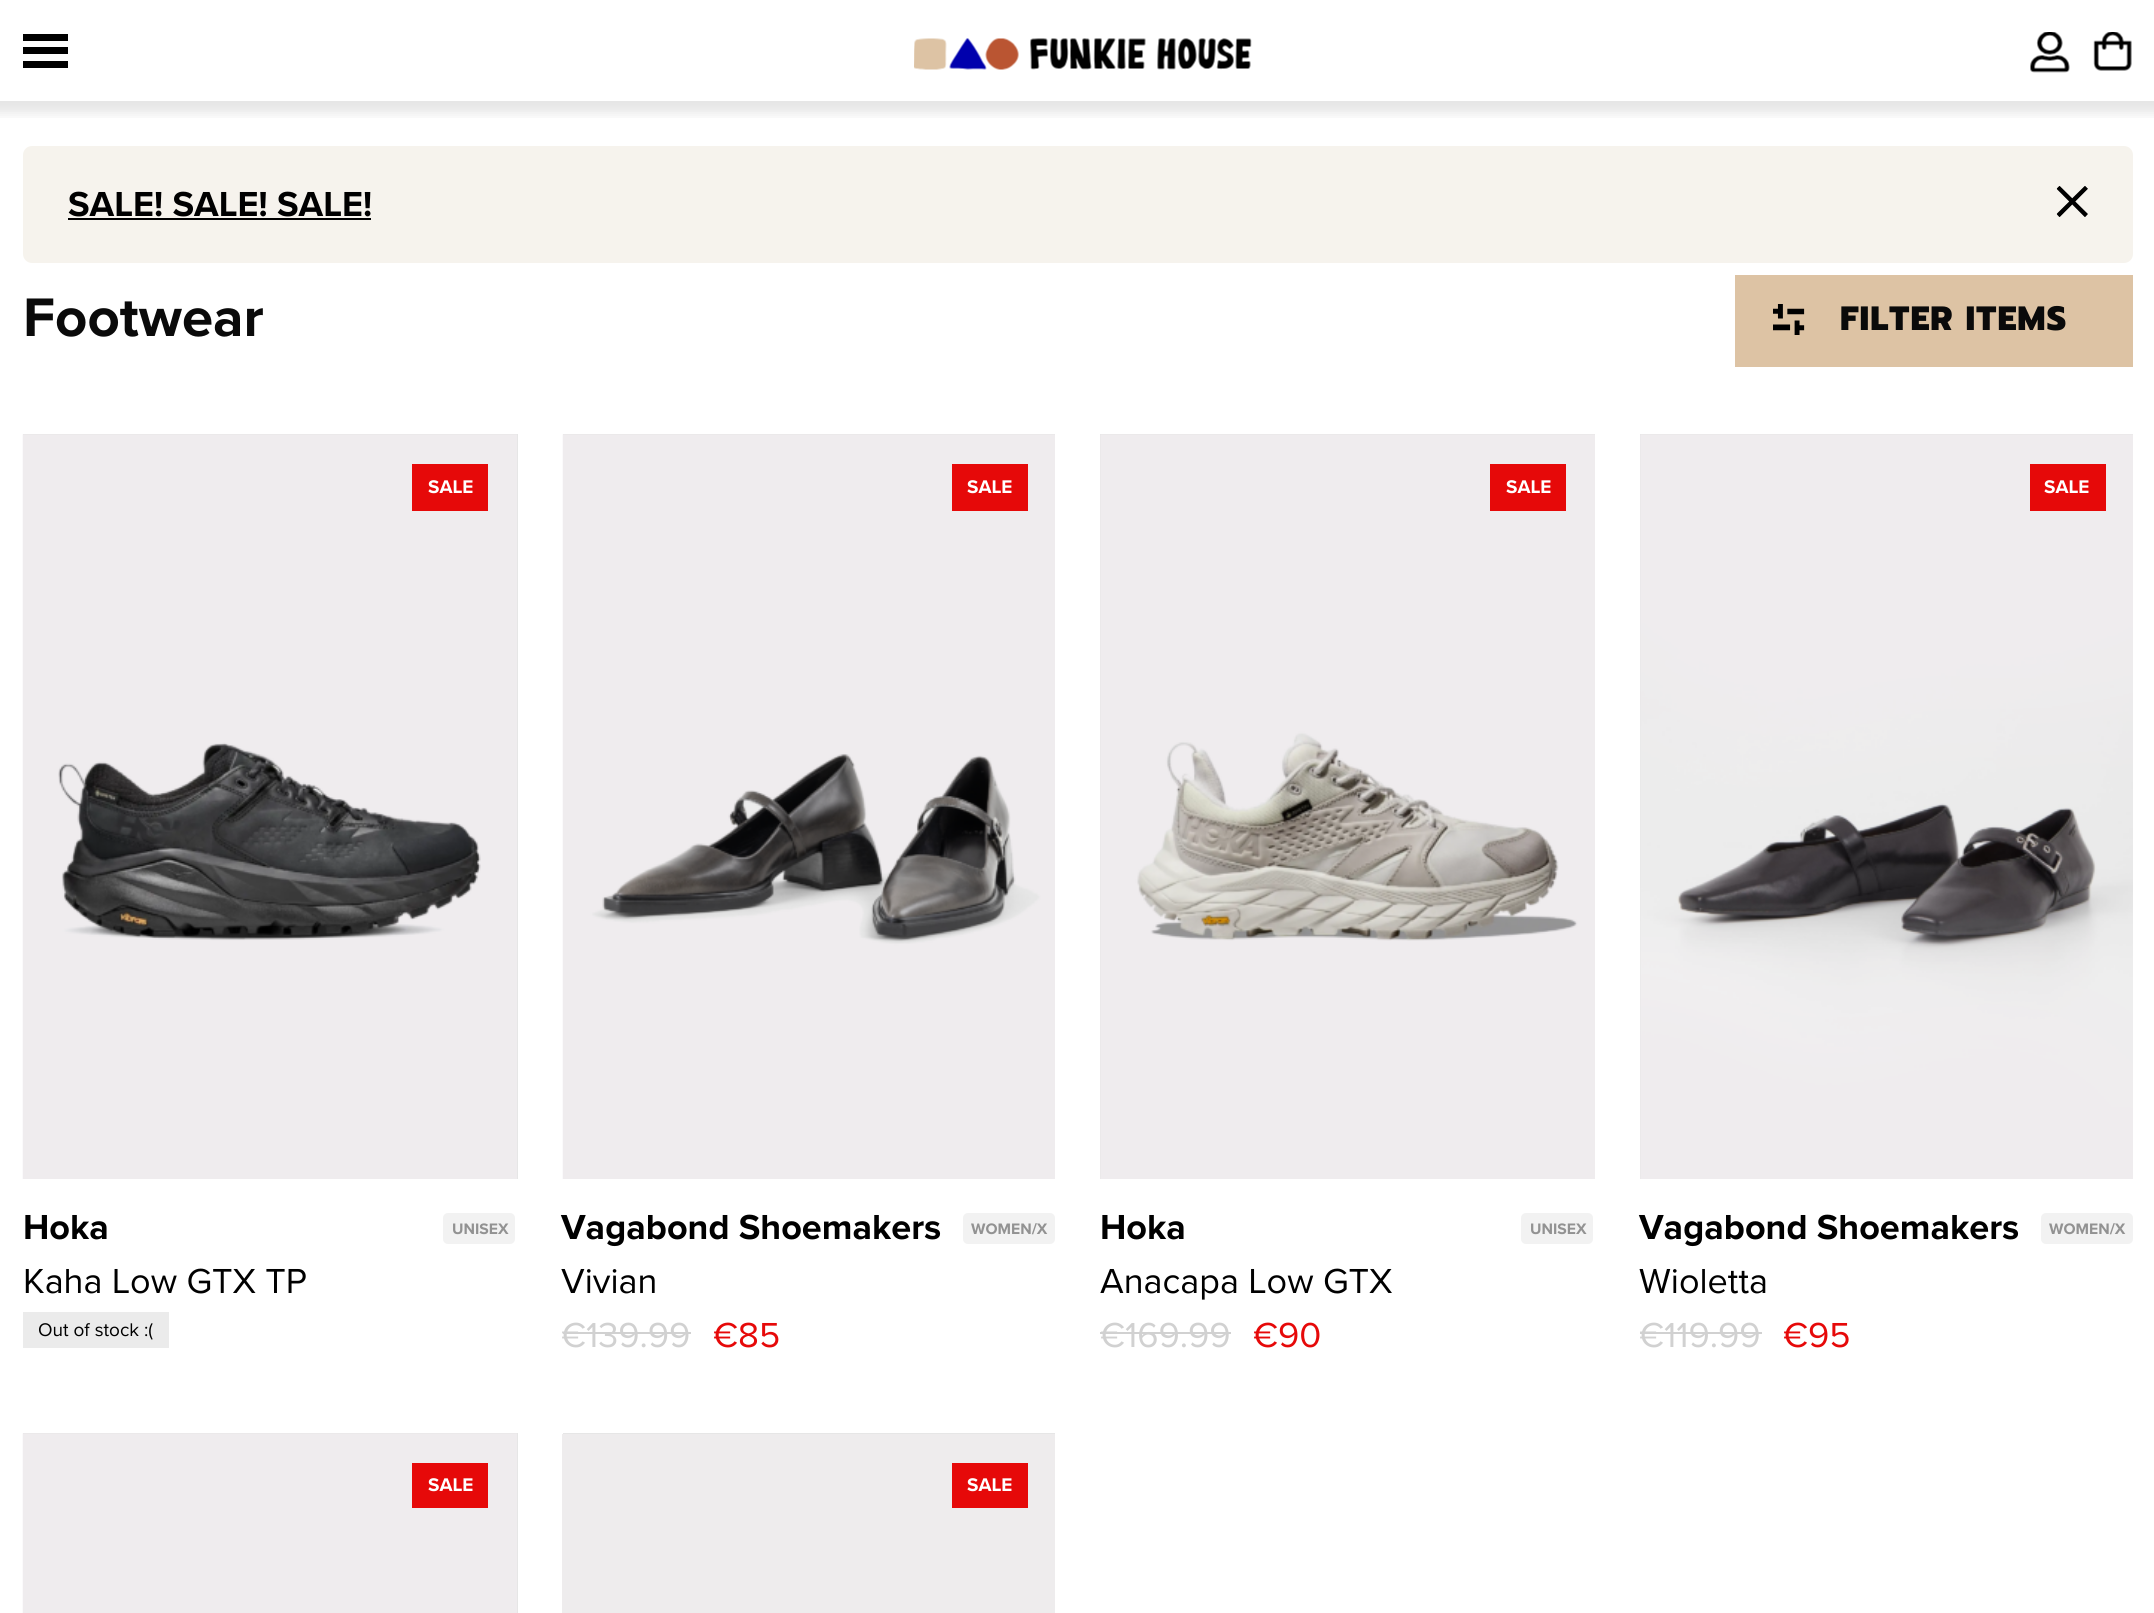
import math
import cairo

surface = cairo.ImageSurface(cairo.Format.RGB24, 2154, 1613)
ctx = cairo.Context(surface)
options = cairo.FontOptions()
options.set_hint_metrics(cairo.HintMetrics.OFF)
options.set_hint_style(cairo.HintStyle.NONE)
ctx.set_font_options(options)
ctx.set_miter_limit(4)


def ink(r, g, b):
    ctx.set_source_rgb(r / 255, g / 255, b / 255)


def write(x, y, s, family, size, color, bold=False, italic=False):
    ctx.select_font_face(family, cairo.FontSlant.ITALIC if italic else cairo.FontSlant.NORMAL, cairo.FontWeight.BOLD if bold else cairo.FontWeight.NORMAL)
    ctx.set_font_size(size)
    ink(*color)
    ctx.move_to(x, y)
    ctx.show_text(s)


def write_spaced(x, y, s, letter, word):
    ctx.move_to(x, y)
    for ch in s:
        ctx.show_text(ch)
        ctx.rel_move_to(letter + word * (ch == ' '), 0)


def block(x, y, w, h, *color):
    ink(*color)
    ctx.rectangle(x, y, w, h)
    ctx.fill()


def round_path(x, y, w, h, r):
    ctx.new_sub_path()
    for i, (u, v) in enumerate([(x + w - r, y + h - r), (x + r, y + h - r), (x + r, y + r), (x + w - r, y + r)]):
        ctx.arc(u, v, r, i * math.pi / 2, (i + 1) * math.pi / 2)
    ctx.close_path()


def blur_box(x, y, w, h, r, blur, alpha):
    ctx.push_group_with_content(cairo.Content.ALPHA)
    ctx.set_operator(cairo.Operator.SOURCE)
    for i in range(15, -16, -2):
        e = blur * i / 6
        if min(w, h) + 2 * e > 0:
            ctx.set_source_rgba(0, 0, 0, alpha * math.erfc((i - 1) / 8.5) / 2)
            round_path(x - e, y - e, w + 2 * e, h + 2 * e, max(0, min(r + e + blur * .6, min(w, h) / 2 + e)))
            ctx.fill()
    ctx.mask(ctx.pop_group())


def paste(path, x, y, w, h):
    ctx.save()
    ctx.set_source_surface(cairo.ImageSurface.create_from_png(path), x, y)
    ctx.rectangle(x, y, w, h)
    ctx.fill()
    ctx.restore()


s1 = dict(family="Proxima Nova", size=36, color=(0, 0, 0), bold=True)
s2 = dict(family="Proxima Nova", size=56.25, color=(10, 10, 10), bold=True)
s3 = dict(family="Proxima Nova", size=19, color=(255, 255, 255), bold=True)
s4 = dict(family="Proxima Nova", size=36, color=(0, 0, 0))
s5 = dict(family="Proxima Nova", size=15.75, color=(146, 146, 146), bold=True)
s6 = dict(family="Proxima Nova", size=19, color=(0, 0, 0))
s7 = dict(family="Proxima Nova", size=36, color=(209, 209, 209))
s8 = dict(family="Proxima Nova", size=36, color=(230, 9, 9))

ink(255, 255, 255)
ctx.paint()
ctx.save()
ctx.rectangle(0, 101, 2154, 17)
ctx.clip()
ink(0, 0, 0)
blur_box(-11, -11, 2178, 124, 0, 5.5, 0.1)
ctx.restore()
block(23, 47, 45, 7, 0, 0, 0)
block(23, 34, 45, 7, 0, 0, 0)
block(23, 61, 45, 7, 0, 0, 0)
paste("pic1.png", 914, 38, 338, 32)
paste("pic2.png", 2030, 32, 40, 41)
paste("pic3.png", 2093, 32, 39, 39)
ink(246, 243, 237)
round_path(23, 146, 2110, 117, 9)
ctx.fill()
write(68, 216, "SALE! SALE! SALE!", **s1)
block(68, 218, 303, 2, 0, 0, 0)
paste("pic4.png", 2056, 186, 32, 31)
write(23, 336, "Footwear", **s2)
block(1735, 275, 398, 92, 221, 195, 164)
paste("pic5.png", 1773, 304, 32, 31)
ctx.select_font_face("Prompt ExtraBold")
ctx.set_font_size(33.75)
ink(10, 10, 10)
write_spaced(1840, 330, "FILTER ITEMS", 1.1, 0)
block(23, 434, 495, 745, 230, 230, 230)
paste("pic6.png", 22, 434, 495, 745)
block(412, 464, 76, 47, 230, 9, 9)
write(428, 493, "SALE", **s3)
write(23, 1239, "Hoka", **s1)
write(23, 1293, "Kaha Low GTX TP", **s4)
ink(242, 242, 242)
round_path(443, 1213, 72, 31, 5)
ctx.fill()
write(452, 1234, "UNISEX", **s5)
block(23, 1312, 146, 36, 235, 235, 235)
write(38, 1336, "Out of stock :(", **s6)
block(563, 434, 492, 745, 230, 230, 230)
paste("pic7.png", 562, 434, 493, 745)
block(952, 464, 76, 47, 230, 9, 9)
write(967, 493, "SALE", **s3)
write(561, 1239, "Vagabond Shoemakers", **s1)
write(561, 1293, "Vivian", **s4)
ink(242, 242, 242)
round_path(963, 1213, 92, 31, 5)
ctx.fill()
write(971, 1234, "WOMEN/X", **s5)
write(561, 1347, "€139.99", **s7)
block(563, 1332, 128, 2, 209, 209, 209)
write(713, 1347, "€85", **s8)
block(1100, 434, 495, 745, 230, 230, 230)
paste("pic8.png", 1100, 434, 495, 745)
block(1490, 464, 76, 47, 230, 9, 9)
write(1506, 493, "SALE", **s3)
write(1100, 1239, "Hoka", **s1)
write(1100, 1293, "Anacapa Low GTX", **s4)
ink(242, 242, 242)
round_path(1521, 1213, 72, 31, 5)
ctx.fill()
write(1530, 1234, "UNISEX", **s5)
write(1100, 1347, "€169.99", **s7)
block(1100, 1332, 131, 2, 209, 209, 209)
write(1253, 1347, "€90", **s8)
block(1640, 434, 493, 745, 230, 230, 230)
paste("pic9.png", 1640, 434, 493, 745)
block(2030, 464, 76, 47, 230, 9, 9)
write(2044, 493, "SALE", **s3)
write(1639, 1239, "Vagabond Shoemakers", **s1)
write(1639, 1293, "Wioletta", **s4)
ink(242, 242, 242)
round_path(2041, 1213, 92, 31, 5)
ctx.fill()
write(2049, 1234, "WOMEN/X", **s5)
write(1639, 1347, "€119.99", **s7)
block(1640, 1332, 122, 2, 209, 209, 209)
write(1783, 1347, "€95", **s8)
block(23, 1433, 495, 180, 230, 230, 230)
paste("pic10.png", 22, 1433, 495, 180)
block(412, 1463, 76, 45, 230, 9, 9)
write(428, 1491, "SALE", **s3)
block(563, 1433, 492, 1, 230, 230, 230)
block(562, 1434, 493, 179, 238, 236, 237)
block(952, 1463, 76, 45, 230, 9, 9)
write(967, 1491, "SALE", **s3)
surface.write_to_png("screenshot.png")
